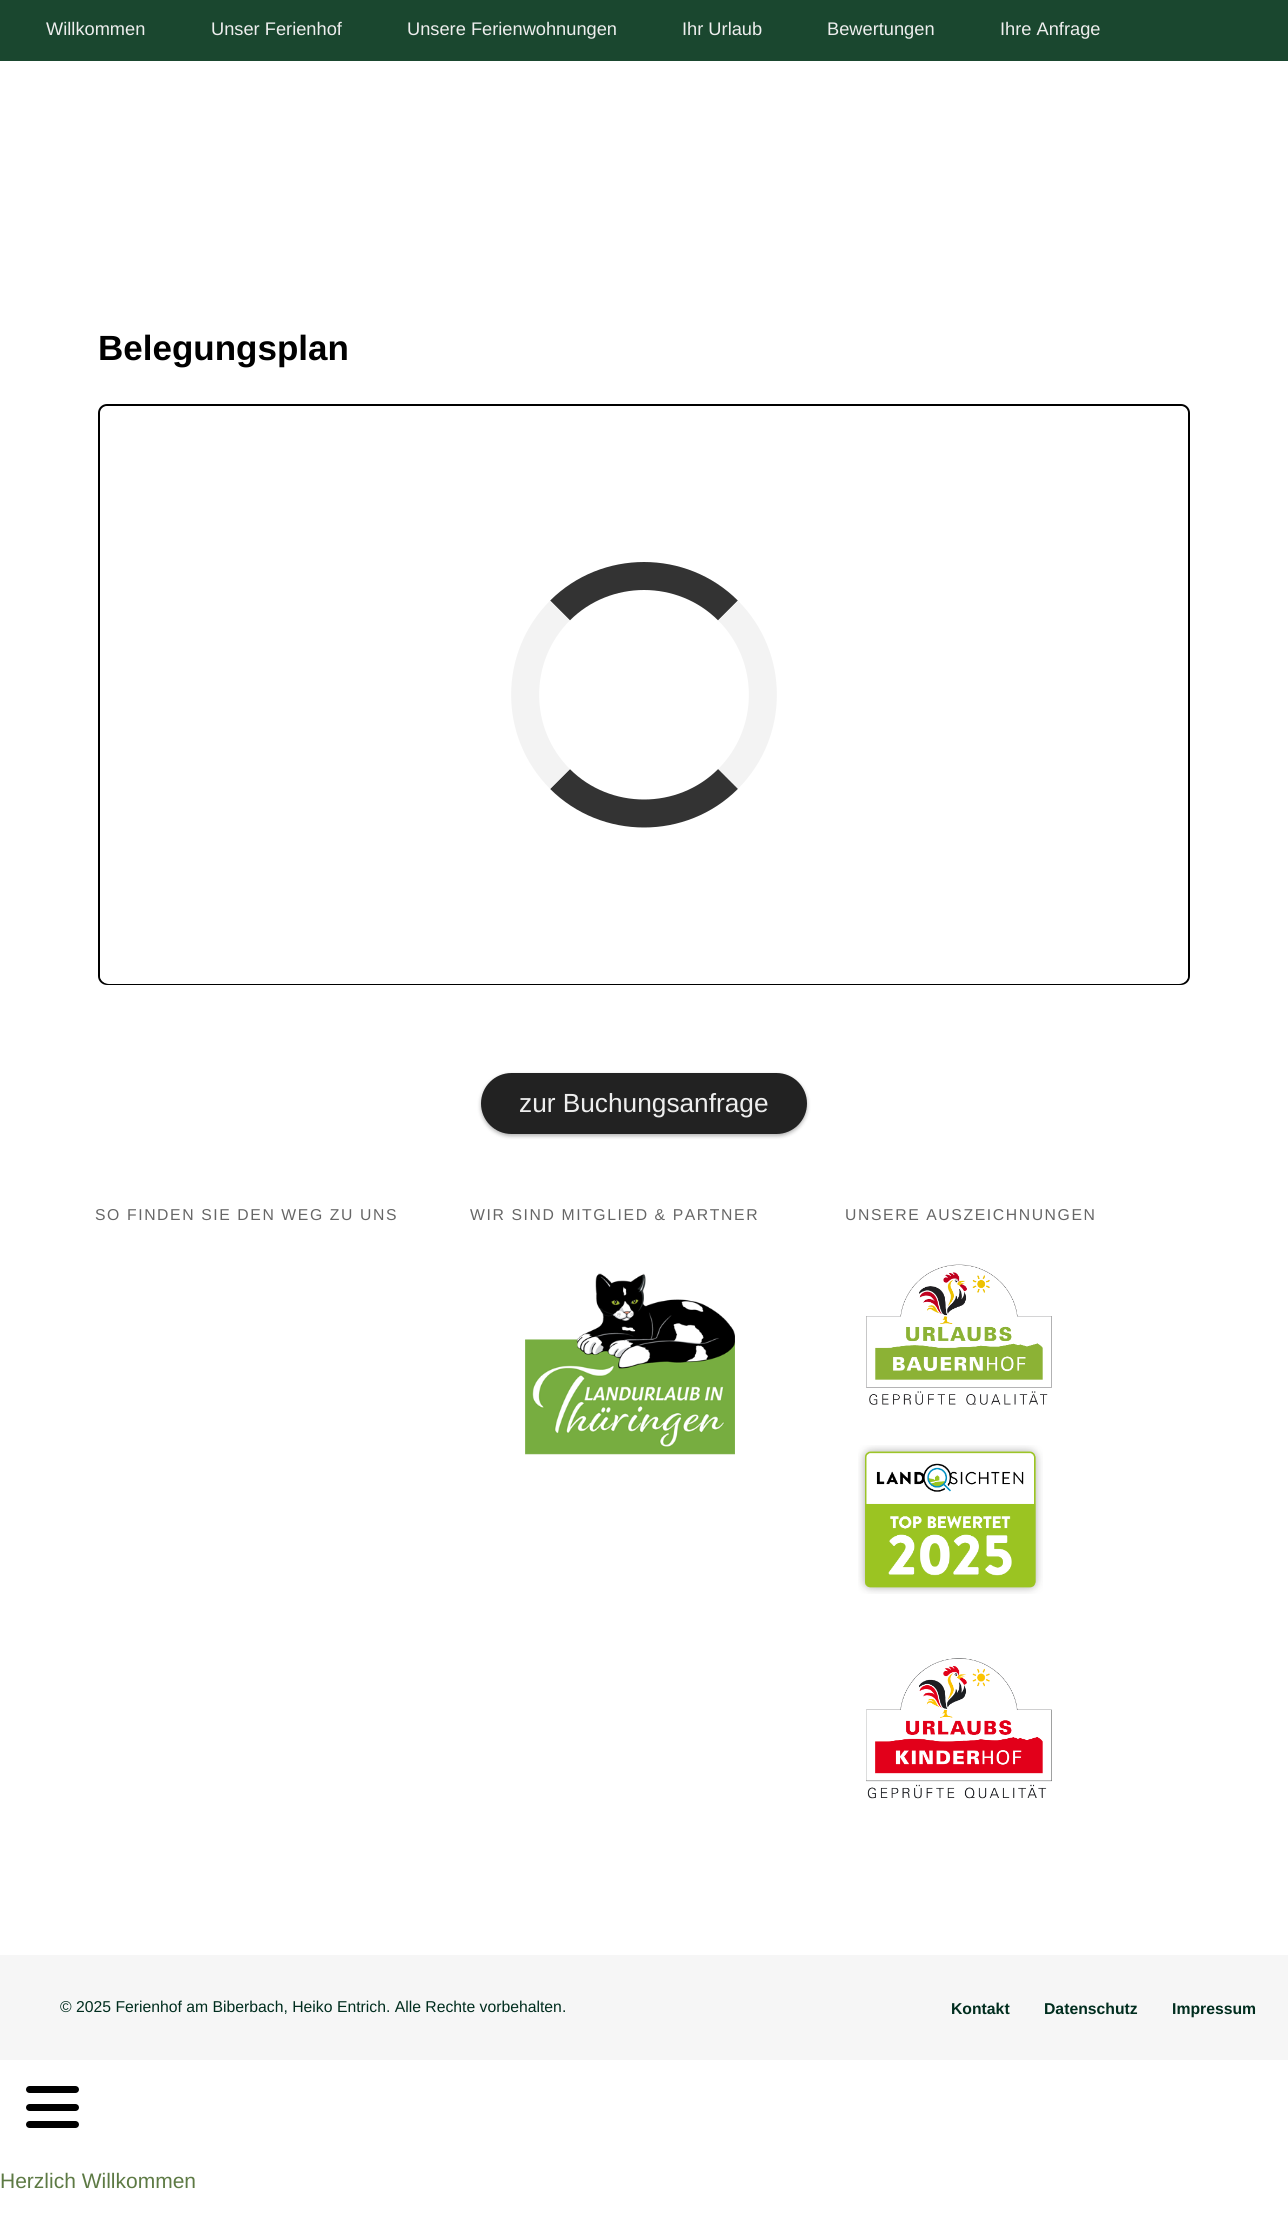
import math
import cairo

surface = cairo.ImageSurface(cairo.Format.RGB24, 1288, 2217)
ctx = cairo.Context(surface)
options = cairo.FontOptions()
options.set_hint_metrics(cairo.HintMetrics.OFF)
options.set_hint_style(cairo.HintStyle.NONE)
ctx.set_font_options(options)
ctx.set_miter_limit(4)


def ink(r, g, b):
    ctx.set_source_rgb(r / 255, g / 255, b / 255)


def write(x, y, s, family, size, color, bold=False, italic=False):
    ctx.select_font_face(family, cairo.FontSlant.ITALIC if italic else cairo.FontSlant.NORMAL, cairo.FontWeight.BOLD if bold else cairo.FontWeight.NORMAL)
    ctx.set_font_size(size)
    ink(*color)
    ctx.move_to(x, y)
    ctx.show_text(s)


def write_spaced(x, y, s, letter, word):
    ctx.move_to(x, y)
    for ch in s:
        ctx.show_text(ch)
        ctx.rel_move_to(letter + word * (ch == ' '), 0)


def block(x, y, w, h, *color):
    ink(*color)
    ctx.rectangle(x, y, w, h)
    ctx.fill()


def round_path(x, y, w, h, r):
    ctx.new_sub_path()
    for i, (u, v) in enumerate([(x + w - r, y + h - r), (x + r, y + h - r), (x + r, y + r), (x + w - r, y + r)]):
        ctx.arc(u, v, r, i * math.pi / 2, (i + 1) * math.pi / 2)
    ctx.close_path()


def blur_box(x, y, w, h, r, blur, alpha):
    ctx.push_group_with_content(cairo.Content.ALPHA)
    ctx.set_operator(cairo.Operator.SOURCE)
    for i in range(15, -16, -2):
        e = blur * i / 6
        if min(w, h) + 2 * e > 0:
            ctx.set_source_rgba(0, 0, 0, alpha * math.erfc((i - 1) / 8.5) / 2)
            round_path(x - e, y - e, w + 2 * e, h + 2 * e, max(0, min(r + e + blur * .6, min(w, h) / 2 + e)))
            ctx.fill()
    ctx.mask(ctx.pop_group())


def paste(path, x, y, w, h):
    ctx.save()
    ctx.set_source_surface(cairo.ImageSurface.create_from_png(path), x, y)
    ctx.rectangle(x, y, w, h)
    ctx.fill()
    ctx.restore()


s1 = dict(family="Liberation Sans", size=18.25, color=(238, 238, 238))
s2 = dict(family="Liberation Sans", size=35, color=(0, 0, 0), bold=True)
s3 = dict(family="Liberation Sans", size=26.25, color=(238, 238, 238))
s4 = dict(family="Liberation Sans", size=15.75, color=(0, 45, 30))
s5 = dict(family="Liberation Sans", size=15.75, color=(0, 45, 30), bold=True)
s6 = dict(family="Liberation Sans", size=21, color=(93, 122, 68))

ink(255, 255, 255)
ctx.paint()
block(0, 0, 1288, 61, 26, 71, 47)
write(46, 35, "Willkommen", **s1)
write(211, 35, "Unser Ferienhof", **s1)
write(407, 35, "Unsere Ferienwohnungen", **s1)
write(682, 35, "Ihr Urlaub", **s1)
write(827, 35, "Bewertungen", **s1)
write(1000, 35, "Ihre Anfrage", **s1)
write(98, 360, "Belegungsplan", **s2)
round_path(99, 405, 1090, 579, 8)
ctx.stroke()
ink(255, 255, 255)
round_path(100, 406, 1088, 578, 9)
ctx.fill()
ctx.new_path()
ctx.move_to(560, 610.5)
ctx.curve_to(606, 564.5, 682, 564.5, 728, 610.5)
ink(51, 51, 51)
ctx.set_line_width(28)
ctx.stroke()
ctx.new_path()
ctx.move_to(728, 610.5)
ctx.curve_to(774.5, 657, 774.5, 732.5, 728, 779)
ink(243, 243, 243)
ctx.stroke()
ctx.new_path()
ctx.move_to(728, 779)
ctx.curve_to(682, 825, 606, 825, 560, 779)
ink(51, 51, 51)
ctx.stroke()
ctx.new_path()
ctx.move_to(560, 779)
ctx.curve_to(513.5, 732.5, 513.5, 657, 560, 610.5)
ink(243, 243, 243)
ctx.stroke()
ink(0, 0, 0)
blur_box(481, 1075, 326, 61, 30.5, 2, 0.3)
ink(34, 34, 34)
round_path(481, 1073, 326, 61, 30.5)
ctx.fill()
write(519, 1112, "zur Buchungsanfrage", **s3)
ctx.set_font_size(15.75)
ink(102, 102, 102)
write_spaced(95, 1220, "SO FINDEN SIE DEN WEG ZU UNS", 1.6, 0)
write_spaced(470, 1220, "WIR SIND MITGLIED & PARTNER", 1.6, 0)
paste("pic1.png", 525, 1273, 210, 182)
write_spaced(845, 1220, "UNSERE AUSZEICHNUNGEN", 1.6, 0)
paste("pic2.png", 866, 1264, 186, 141)
paste("pic3.png", 858, 1445, 185, 149)
paste("pic4.png", 866, 1658, 186, 141)
block(0, 1955, 1288, 105, 246, 246, 246)
write(60, 2012, "© 2025 Ferienhof am Biberbach, Heiko Entrich. Alle Rechte vorbehalten.", **s4)
write(951, 2014, "Kontakt", **s5)
write(1044, 2014, "Datenschutz", **s5)
write(1172, 2014, "Impressum", **s5)
ink(0, 0, 0)
round_path(26, 2086, 53, 7, 3.5)
ctx.fill()
round_path(26, 2104, 53, 7, 3.5)
ctx.fill()
round_path(26, 2121, 53, 7, 3.5)
ctx.fill()
write(0, 2188, "Herzlich Willkommen", **s6)
surface.write_to_png("screenshot.png")
